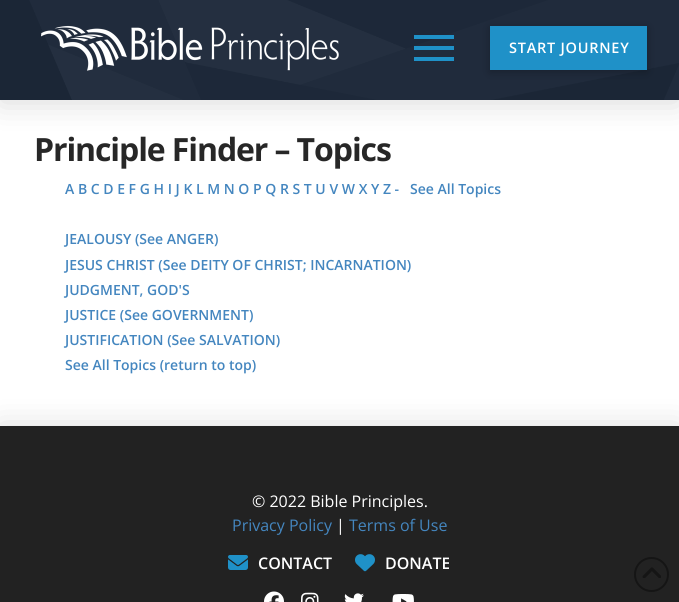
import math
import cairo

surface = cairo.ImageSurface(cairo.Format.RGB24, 679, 602)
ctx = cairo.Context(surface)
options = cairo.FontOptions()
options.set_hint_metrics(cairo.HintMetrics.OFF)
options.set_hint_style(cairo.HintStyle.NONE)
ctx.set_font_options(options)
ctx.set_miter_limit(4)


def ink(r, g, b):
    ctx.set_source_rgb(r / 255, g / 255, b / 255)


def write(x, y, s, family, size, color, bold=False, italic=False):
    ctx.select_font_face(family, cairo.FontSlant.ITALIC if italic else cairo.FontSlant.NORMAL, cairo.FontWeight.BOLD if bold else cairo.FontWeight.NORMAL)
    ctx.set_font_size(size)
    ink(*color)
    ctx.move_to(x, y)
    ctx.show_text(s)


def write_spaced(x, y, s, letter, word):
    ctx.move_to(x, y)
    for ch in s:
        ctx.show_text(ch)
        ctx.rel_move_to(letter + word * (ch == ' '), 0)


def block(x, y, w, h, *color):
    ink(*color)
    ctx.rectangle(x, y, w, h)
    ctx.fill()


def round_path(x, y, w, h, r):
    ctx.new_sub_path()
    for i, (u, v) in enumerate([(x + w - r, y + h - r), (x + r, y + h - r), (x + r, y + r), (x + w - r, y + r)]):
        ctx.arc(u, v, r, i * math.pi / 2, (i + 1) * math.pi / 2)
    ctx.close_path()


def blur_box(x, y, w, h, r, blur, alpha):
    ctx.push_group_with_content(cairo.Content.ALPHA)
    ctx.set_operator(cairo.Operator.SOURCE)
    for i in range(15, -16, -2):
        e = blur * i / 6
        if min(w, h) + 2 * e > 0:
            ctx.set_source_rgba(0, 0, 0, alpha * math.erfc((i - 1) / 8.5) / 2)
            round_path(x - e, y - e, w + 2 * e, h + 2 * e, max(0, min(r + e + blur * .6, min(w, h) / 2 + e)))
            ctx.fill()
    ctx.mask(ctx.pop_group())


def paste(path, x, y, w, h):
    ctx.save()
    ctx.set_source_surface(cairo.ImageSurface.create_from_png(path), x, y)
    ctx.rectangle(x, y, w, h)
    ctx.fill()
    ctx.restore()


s1 = dict(family="Open Sans SemiBold", size=14, color=(68, 134, 191))
s2 = dict(family="Open Sans", size=16, color=(255, 255, 255))
s3 = dict(family="Open Sans", size=16, color=(68, 134, 191))
s4 = dict(family="Open Sans SemiBold", size=16, color=(255, 255, 255))

ink(255, 255, 255)
ctx.paint()
ink(0, 0, 0)
blur_box(0, 2, 679, 100, 0, 16, 0.15)
paste("pic1.png", 0, 0, 679, 100)
paste("pic2.png", 41, 25, 298, 46)
block(414, 35, 40, 4, 31, 145, 200)
block(414, 46, 40, 4, 31, 145, 200)
block(414, 57, 40, 4, 31, 145, 200)
ink(0, 0, 0)
blur_box(490, 28, 157, 44, 0, 4.5, 0.25)
block(490, 26, 157, 44, 31, 145, 200)
ctx.select_font_face("Open Sans SemiBold")
ctx.set_font_size(14.5)
ink(255, 255, 255)
write_spaced(509, 53, "START JOURNEY", 0.75, 0)
ctx.select_font_face("Open Sans", cairo.FontSlant.NORMAL, cairo.FontWeight.BOLD)
ctx.set_font_size(32)
ink(39, 39, 39)
write_spaced(34, 161, "Principle Finder – Topics", -1.1, 0)
write(65, 194, "A B C D E F G H I J K L M N O P Q R S T U V W X Y Z -   See All Topics", **s1)
write(65, 244, "JEALOUSY (See ANGER)", **s1)
write(65, 270, "JESUS CHRIST (See DEITY OF CHRIST; INCARNATION)", **s1)
write(65, 295, "JUDGMENT, GOD'S", **s1)
write(65, 320, "JUSTICE (See GOVERNMENT)", **s1)
write(65, 345, "JUSTIFICATION (See SALVATION)", **s1)
write(65, 370, "See All Topics (return to top)", **s1)
ink(0, 0, 0)
blur_box(0, 428, 679, 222, 0, 16, 0.15)
block(0, 426, 679, 176, 34, 34, 34)
write(252, 507, "© 2022 Bible Principles.", **s2)
write(232, 531, "Privacy Policy", **s3)
write(336, 531, "|", **s2)
write(349, 531, "Terms of Use", **s3)
paste("pic3.png", 228, 555, 20, 15)
write(258, 569, "CONTACT", **s4)
paste("pic4.png", 355, 554, 20, 18)
write(385, 569, "DONATE", **s4)
paste("pic5.png", 264, 591, 20, 11)
paste("pic6.png", 301, 592, 18, 10)
paste("pic7.png", 344, 593, 20, 9)
paste("pic8.png", 392, 594, 22, 8)
ctx.arc(651.5, 574.5, 16.5, 0, 2 * math.pi)
ink(21, 21, 21)
ctx.stroke()
paste("pic9.png", 642, 567, 19, 11)
surface.write_to_png("screenshot.png")
